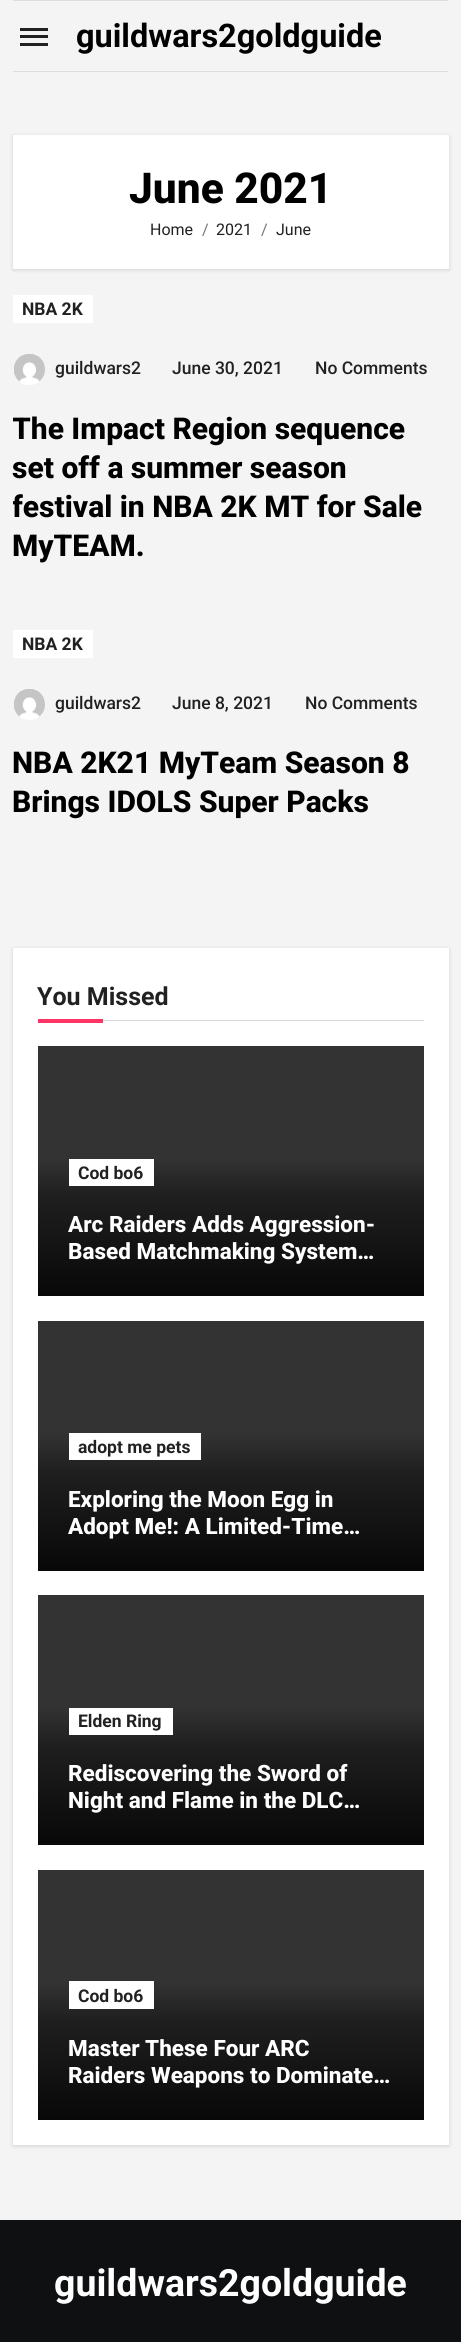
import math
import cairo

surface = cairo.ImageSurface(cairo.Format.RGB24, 461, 2342)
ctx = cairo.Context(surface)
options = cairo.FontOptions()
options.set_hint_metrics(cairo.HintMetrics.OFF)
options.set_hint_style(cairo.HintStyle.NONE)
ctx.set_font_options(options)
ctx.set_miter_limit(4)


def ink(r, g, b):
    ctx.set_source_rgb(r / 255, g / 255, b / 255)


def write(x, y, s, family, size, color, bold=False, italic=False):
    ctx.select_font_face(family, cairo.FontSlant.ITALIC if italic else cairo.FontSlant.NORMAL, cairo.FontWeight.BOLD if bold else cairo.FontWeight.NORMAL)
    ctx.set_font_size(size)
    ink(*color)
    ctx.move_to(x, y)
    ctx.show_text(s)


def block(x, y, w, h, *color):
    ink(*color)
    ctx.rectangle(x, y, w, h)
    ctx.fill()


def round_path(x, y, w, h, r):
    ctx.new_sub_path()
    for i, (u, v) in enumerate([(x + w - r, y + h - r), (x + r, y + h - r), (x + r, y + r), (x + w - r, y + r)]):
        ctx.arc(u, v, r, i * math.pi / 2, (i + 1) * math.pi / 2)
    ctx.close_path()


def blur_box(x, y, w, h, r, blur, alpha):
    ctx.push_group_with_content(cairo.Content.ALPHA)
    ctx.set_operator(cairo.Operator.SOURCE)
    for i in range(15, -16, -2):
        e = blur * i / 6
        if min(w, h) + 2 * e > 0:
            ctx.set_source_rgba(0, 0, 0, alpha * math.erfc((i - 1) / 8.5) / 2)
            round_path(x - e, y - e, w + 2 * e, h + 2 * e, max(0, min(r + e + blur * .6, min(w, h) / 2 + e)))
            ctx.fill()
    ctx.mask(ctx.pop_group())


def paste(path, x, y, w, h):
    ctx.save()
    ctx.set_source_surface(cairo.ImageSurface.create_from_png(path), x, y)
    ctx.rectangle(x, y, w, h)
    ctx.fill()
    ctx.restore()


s1 = dict(family="Roboto", size=32.5, color=(0, 0, 0), bold=True)
s2 = dict(family="Roboto ExtraBold", size=42.5, color=(0, 0, 0))
s3 = dict(family="Roboto", size=16, color=(33, 33, 33))
s4 = dict(family="Roboto", size=16, color=(108, 117, 125))
s5 = dict(family="Roboto", size=17.5, color=(33, 33, 33), bold=True)
s6 = dict(family="Roboto Medium", size=17.5, color=(33, 33, 33))
s7 = dict(family="Roboto ExtraBold", size=30, color=(0, 0, 0))
s8 = dict(family="Roboto", size=25, color=(33, 33, 33), bold=True)
s9 = dict(family="Roboto ExtraBold", size=22.5, color=(255, 255, 255))
s10 = dict(family="Roboto", size=37.5, color=(255, 255, 255), bold=True)

ink(244, 244, 244)
ctx.paint()
ink(221, 221, 221)
ctx.new_path()
ctx.move_to(12, 0)
ctx.line_to(449, 0)
ctx.line_to(448, 1)
ctx.line_to(14, 1)
ctx.close_path()
ctx.fill()
ctx.new_path()
ctx.move_to(449, 72)
ctx.line_to(12, 72)
ctx.line_to(14, 71)
ctx.line_to(448, 71)
ctx.close_path()
ctx.fill()
block(20, 28, 28, 3, 33, 33, 33)
block(20, 35, 28, 3, 33, 33, 33)
block(20, 43, 28, 3, 33, 33, 33)
write(76, 47, "guildwars2goldguide", **s1)
ink(0, 0, 0)
blur_box(13, 136, 436, 134, 0, 2, 0.15)
block(13, 135, 436, 134, 255, 255, 255)
write(129, 203, "June 2021", **s2)
write(150, 235, "Home", **s3)
write(202, 235, "/", **s4)
write(216, 235, "2021", **s3)
write(261, 235, "/", **s4)
write(276, 235, "June", **s3)
block(13, 295, 80, 28, 255, 255, 255)
write(22, 315, "NBA 2K", **s5)
paste("pic1.png", 14, 354, 31, 31)
write(55, 374, "guildwars2", **s6)
write(172, 374, "June 30, 2021", **s6)
write(315, 374, "No Comments", **s6)
ctx.save()
ctx.rectangle(13, 294, 436, 297)
ctx.clip()
write(12, 439, "The Impact Region sequence", **s7)
ctx.restore()
write(12, 478, "set off a summer season", **s7)
ctx.save()
ctx.rectangle(13, 294, 436, 297)
ctx.clip()
write(12, 517, "festival in NBA 2K MT for Sale", **s7)
ctx.restore()
write(12, 556, "MyTEAM.", **s7)
block(13, 630, 80, 28, 255, 255, 255)
write(22, 650, "NBA 2K", **s5)
paste("pic1.png", 14, 689, 31, 31)
write(55, 709, "guildwars2", **s6)
write(172, 709, "June 8, 2021", **s6)
write(305, 709, "No Comments", **s6)
write(12, 773, "NBA 2K21 MyTeam Season 8", **s7)
write(12, 812, "Brings IDOLS Super Packs", **s7)
ink(0, 0, 0)
blur_box(13, 949, 436, 1197, 0, 2, 0.15)
block(13, 948, 436, 1197, 255, 255, 255)
block(103, 1020, 321, 1, 215, 215, 215)
write(37, 1005, "You Missed", **s8)
block(38, 1019, 65, 4, 255, 51, 102)
gradient = cairo.LinearGradient(231, 1046, 231, 1296)
gradient.add_color_stop_rgba(0, 0.2, 0.2, 0.2, 1)
gradient.add_color_stop_rgba(0.45, 0.2, 0.2, 0.2, 1)
gradient.add_color_stop_rgba(0.6, 0.122, 0.122, 0.122, 1)
gradient.add_color_stop_rgba(1, 0.031, 0.031, 0.031, 1)
ctx.set_source(gradient)
ctx.rectangle(38, 1046, 386, 250)
ctx.fill()
block(69, 1159, 85, 27, 255, 255, 255)
write(78, 1179, "Cod bo6", **s5)
write(68, 1232, "Arc Raiders Adds Aggression-", **s9)
write(68, 1259, "Based Matchmaking System…", **s9)
gradient = cairo.LinearGradient(231, 1321, 231, 1571)
gradient.add_color_stop_rgba(0, 0.2, 0.2, 0.2, 1)
gradient.add_color_stop_rgba(0.45, 0.2, 0.2, 0.2, 1)
gradient.add_color_stop_rgba(0.6, 0.122, 0.122, 0.122, 1)
gradient.add_color_stop_rgba(1, 0.031, 0.031, 0.031, 1)
ctx.set_source(gradient)
ctx.rectangle(38, 1321, 386, 250)
ctx.fill()
block(69, 1433, 132, 27, 255, 255, 255)
write(78, 1453, "adopt me pets", **s5)
write(68, 1507, "Exploring the Moon Egg in", **s9)
write(68, 1534, "Adopt Me!: A Limited-Time…", **s9)
gradient = cairo.LinearGradient(231, 1595, 231, 1845)
gradient.add_color_stop_rgba(0, 0.2, 0.2, 0.2, 1)
gradient.add_color_stop_rgba(0.45, 0.2, 0.2, 0.2, 1)
gradient.add_color_stop_rgba(0.6, 0.122, 0.122, 0.122, 1)
gradient.add_color_stop_rgba(1, 0.031, 0.031, 0.031, 1)
ctx.set_source(gradient)
ctx.rectangle(38, 1595, 386, 250)
ctx.fill()
block(69, 1708, 104, 27, 255, 255, 255)
write(78, 1727, "Elden Ring", **s5)
write(68, 1781, "Rediscovering the Sword of", **s9)
write(68, 1808, "Night and Flame in the DLC…", **s9)
gradient = cairo.LinearGradient(231, 1870, 231, 2120)
gradient.add_color_stop_rgba(0, 0.2, 0.2, 0.2, 1)
gradient.add_color_stop_rgba(0.45, 0.2, 0.2, 0.2, 1)
gradient.add_color_stop_rgba(0.6, 0.122, 0.122, 0.122, 1)
gradient.add_color_stop_rgba(1, 0.031, 0.031, 0.031, 1)
ctx.set_source(gradient)
ctx.rectangle(38, 1870, 386, 250)
ctx.fill()
block(69, 1981, 85, 28, 255, 255, 255)
write(78, 2002, "Cod bo6", **s5)
write(68, 2056, "Master These Four ARC", **s9)
write(68, 2083, "Raiders Weapons to Dominate…", **s9)
block(0, 2220, 461, 122, 15, 16, 18)
write(54, 2296, "guildwars2goldguide", **s10)
surface.write_to_png("screenshot.png")
